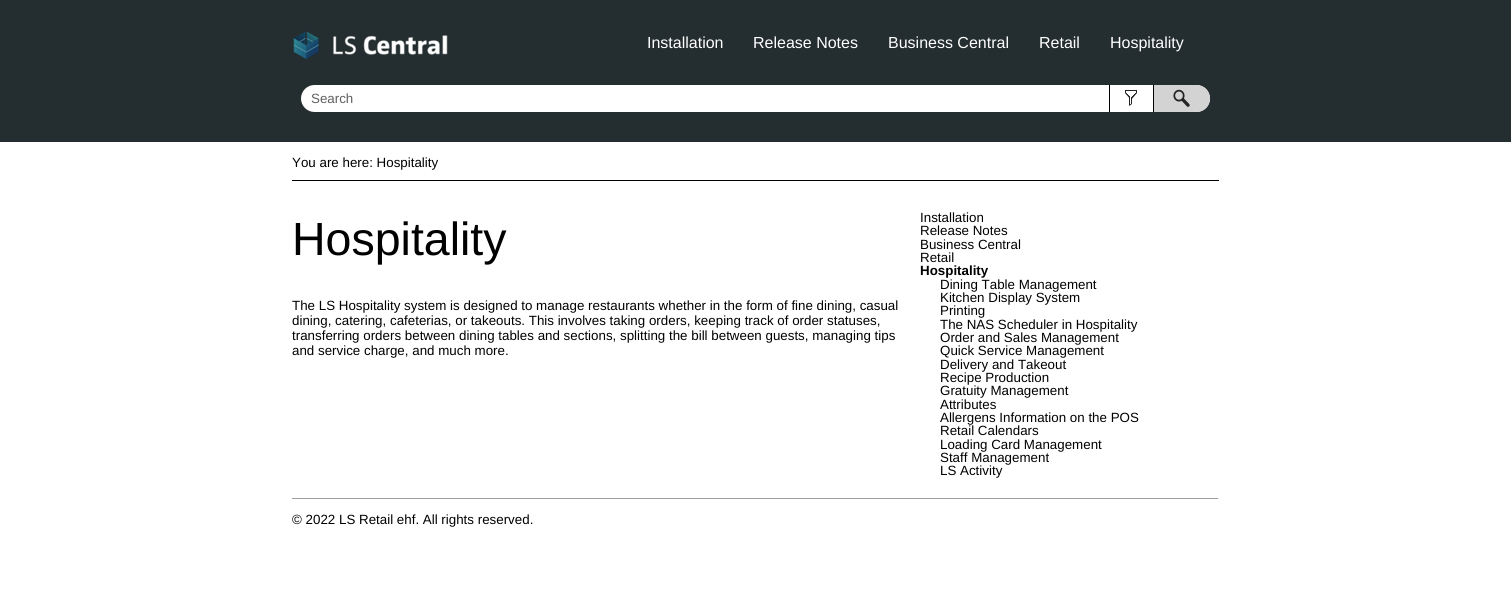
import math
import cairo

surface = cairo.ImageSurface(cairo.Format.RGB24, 1511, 610)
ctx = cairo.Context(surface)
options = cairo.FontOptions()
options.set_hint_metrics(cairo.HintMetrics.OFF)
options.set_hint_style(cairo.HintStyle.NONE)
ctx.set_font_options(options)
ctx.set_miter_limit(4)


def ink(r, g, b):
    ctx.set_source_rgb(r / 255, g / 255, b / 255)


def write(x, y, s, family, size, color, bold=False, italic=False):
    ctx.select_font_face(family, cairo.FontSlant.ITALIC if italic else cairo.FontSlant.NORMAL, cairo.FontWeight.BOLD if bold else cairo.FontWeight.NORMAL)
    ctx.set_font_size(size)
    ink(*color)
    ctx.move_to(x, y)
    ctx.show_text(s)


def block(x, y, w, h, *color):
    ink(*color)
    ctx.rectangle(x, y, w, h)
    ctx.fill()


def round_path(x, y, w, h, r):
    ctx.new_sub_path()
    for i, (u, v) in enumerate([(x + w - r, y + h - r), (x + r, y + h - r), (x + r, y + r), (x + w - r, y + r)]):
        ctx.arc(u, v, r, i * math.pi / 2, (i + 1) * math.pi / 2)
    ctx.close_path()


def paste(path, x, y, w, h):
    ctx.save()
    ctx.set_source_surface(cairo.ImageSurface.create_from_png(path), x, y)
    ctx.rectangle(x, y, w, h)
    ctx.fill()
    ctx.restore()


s1 = dict(family="Liberation Sans", size=16, color=(255, 255, 255))
s2 = dict(family="Liberation Sans", size=13.35, color=(95, 95, 95))
s3 = dict(family="Liberation Sans", size=13.35, color=(0, 0, 0))
s4 = dict(family="Liberation Sans", size=46.5, color=(0, 0, 0))
s5 = dict(family="Liberation Sans", size=13.35, color=(0, 0, 0), bold=True)

ink(255, 255, 255)
ctx.paint()
block(0, 0, 1511, 142, 36, 45, 47)
paste("pic1.png", 293, 31, 155, 29)
write(647, 48, "Installation", **s1)
write(753, 48, "Release Notes", **s1)
write(888, 48, "Business Central", **s1)
write(1039, 48, "Retail", **s1)
write(1110, 48, "Hospitality", **s1)
round_path(301, 85, 909, 27, 13.5)
ctx.fill()
write(311, 103, "Search", **s2)
paste("pic2.png", 1125, 90, 12, 16)
block(1153, 85, 1, 27, 0, 0, 0)
block(1109, 85, 1, 27, 0, 0, 0)
ink(211, 211, 211)
ctx.new_path()
ctx.move_to(1154, 85)
ctx.line_to(1196.5, 85)
ctx.curve_to(1204, 85, 1210, 91, 1210, 98.5)
ctx.curve_to(1210, 106, 1204, 112, 1196.5, 112)
ctx.line_to(1154, 112)
ctx.close_path()
ctx.fill()
paste("pic3.png", 1173, 89, 17, 18)
block(292, 180, 927, 1, 0, 0, 0)
write(292, 167, "You are here: Hospitality", **s3)
write(292, 255, "Hospitality", **s4)
write(292, 310, "The LS Hospitality system is designed to manage restaurants whether in the form of fine dining, casual", **s3)
write(292, 325, "dining, catering, cafeterias, or takeouts. This involves taking orders, keeping track of order statuses,", **s3)
write(292, 340, "transferring orders between dining tables and sections, splitting the bill between guests, managing tips", **s3)
write(292, 355, "and service charge, and much more.", **s3)
write(920, 222, "Installation", **s3)
write(920, 235, "Release Notes", **s3)
write(920, 249, "Business Central", **s3)
write(920, 262, "Retail", **s3)
write(920, 275, "Hospitality", **s5)
write(940, 289, "Dining Table Management", **s3)
write(940, 302, "Kitchen Display System", **s3)
write(940, 315, "Printing", **s3)
write(940, 329, "The NAS Scheduler in Hospitality", **s3)
write(940, 342, "Order and Sales Management", **s3)
write(940, 355, "Quick Service Management", **s3)
write(940, 369, "Delivery and Takeout", **s3)
write(940, 382, "Recipe Production", **s3)
write(940, 395, "Gratuity Management", **s3)
write(940, 409, "Attributes", **s3)
write(940, 422, "Allergens Information on the POS", **s3)
write(940, 435, "Retail Calendars", **s3)
write(940, 449, "Loading Card Management", **s3)
write(940, 462, "Staff Management", **s3)
write(940, 475, "LS Activity", **s3)
block(292, 498, 927, 1, 159, 159, 159)
block(1218, 498, 1, 1, 238, 238, 238)
write(292, 524, "© 2022 LS Retail ehf. All rights reserved.", **s3)
surface.write_to_png("screenshot.png")
